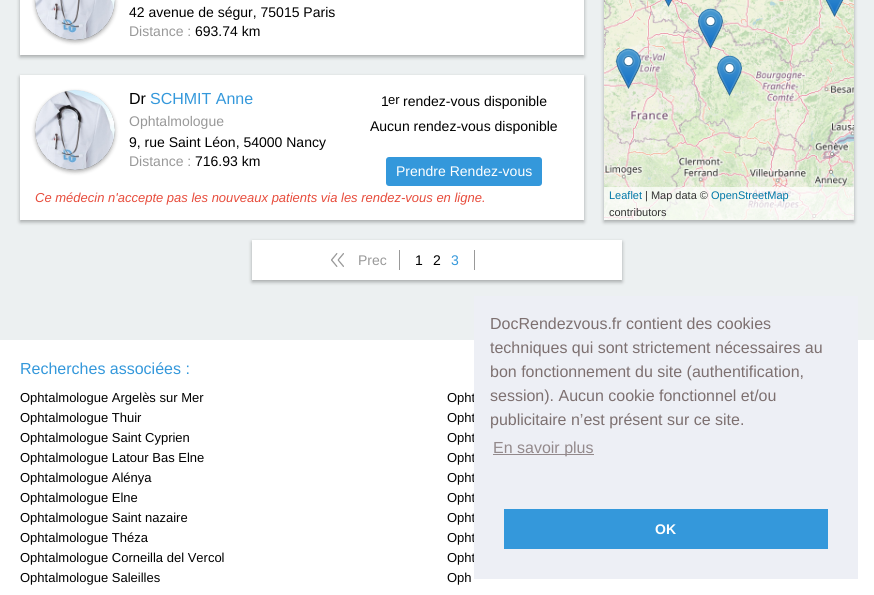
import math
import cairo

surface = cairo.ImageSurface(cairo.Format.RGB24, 874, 595)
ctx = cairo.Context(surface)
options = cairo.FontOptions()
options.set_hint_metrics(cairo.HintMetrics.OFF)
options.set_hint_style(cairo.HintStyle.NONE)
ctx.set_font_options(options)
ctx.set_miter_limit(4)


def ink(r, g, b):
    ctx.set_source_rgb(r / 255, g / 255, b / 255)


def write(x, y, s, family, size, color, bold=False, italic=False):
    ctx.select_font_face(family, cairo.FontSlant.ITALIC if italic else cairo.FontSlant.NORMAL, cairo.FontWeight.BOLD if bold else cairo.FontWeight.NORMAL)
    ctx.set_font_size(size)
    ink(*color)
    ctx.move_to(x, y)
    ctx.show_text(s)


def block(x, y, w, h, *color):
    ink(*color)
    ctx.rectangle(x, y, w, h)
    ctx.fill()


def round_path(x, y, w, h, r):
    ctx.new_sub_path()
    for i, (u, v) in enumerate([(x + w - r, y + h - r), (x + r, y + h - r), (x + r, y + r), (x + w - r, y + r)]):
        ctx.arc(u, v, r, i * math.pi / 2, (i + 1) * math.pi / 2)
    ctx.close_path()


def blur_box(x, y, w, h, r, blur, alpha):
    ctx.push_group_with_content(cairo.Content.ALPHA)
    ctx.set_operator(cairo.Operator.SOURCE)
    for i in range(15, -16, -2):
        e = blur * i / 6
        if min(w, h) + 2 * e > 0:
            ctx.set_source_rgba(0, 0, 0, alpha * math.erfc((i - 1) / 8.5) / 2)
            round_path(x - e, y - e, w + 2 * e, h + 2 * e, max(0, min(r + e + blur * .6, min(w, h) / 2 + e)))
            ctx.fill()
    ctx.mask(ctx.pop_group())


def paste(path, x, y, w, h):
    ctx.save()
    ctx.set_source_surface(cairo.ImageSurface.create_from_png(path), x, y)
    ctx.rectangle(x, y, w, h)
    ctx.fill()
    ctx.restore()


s1 = dict(family="Liberation Sans", size=14, color=(0, 0, 0))
s2 = dict(family="Liberation Sans", size=14, color=(153, 153, 153))
s3 = dict(family="Liberation Sans", size=16, color=(0, 0, 0))
s4 = dict(family="Liberation Sans", size=16, color=(52, 152, 219))
s5 = dict(family="Liberation Sans", size=13, color=(0, 0, 0))
s6 = dict(family="Liberation Sans", size=14, color=(255, 255, 255))
s7 = dict(family="Liberation Sans", size=13, color=(231, 76, 60), italic=True)
s8 = dict(family="Liberation Sans", size=11, color=(0, 120, 168))
s9 = dict(family="Liberation Sans", size=11, color=(51, 51, 51))
s10 = dict(family="Liberation Sans", size=14, color=(52, 152, 219))
s11 = dict(family="Liberation Sans", size=16, color=(125, 112, 112))
s12 = dict(family="Liberation Sans", size=16, color=(147, 137, 139))
s13 = dict(family="Liberation Sans", size=14, color=(255, 255, 255), bold=True)

ink(236, 240, 241)
ctx.paint()
ink(0, 0, 0)
blur_box(20, -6, 564, 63, 0, 2, 0.3)
block(20, 0, 564, 55, 255, 255, 255)
ink(0, 0, 0)
blur_box(35, -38, 80, 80, 40, 2, 0.3)
ctx.save()
round_path(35, -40, 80, 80, 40)
ctx.clip()
blur_box(35, -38, 80, 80, 40, 2, 0.3)
ctx.restore()
paste("pic1.png", 35, 0, 80, 40)
write(129, 17, "42 avenue de ségur, 75015 Paris", **s1)
write(129, 36, "Distance :", **s2)
write(195, 36, "693.74 km", **s1)
ink(0, 0, 0)
blur_box(20, 77, 564, 145, 0, 2, 0.3)
block(20, 75, 564, 145, 255, 255, 255)
ink(0, 0, 0)
blur_box(35, 92, 80, 80, 40, 2, 0.3)
ctx.save()
round_path(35, 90, 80, 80, 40)
ctx.clip()
blur_box(35, 92, 80, 80, 40, 2, 0.3)
ctx.restore()
paste("pic2.png", 35, 90, 80, 80)
write(129, 104, "Dr", **s3)
write(150, 104, "SCHMIT Anne", **s4)
write(129, 126, "Ophtalmologue", **s2)
write(129, 147, "9, rue Saint Léon, 54000 Nancy", **s1)
write(129, 166, "Distance :", **s2)
write(195, 166, "716.93 km", **s1)
write(381, 106, "1", **s1)
write(388, 104, "er", **s5)
write(403, 106, "rendez-vous disponible", **s1)
write(370, 131, "Aucun rendez-vous disponible", **s1)
ink(52, 152, 219)
round_path(386, 157, 156, 29, 3)
ctx.fill()
write(396, 176, "Prendre Rendez-vous", **s6)
write(35, 202, "Ce médecin n'accepte pas les nouveaux patients via les rendez-vous en ligne.", **s7)
ink(0, 0, 0)
blur_box(604, -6, 250, 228, 0, 2, 0.3)
paste("pic3.png", 604, 0, 205, 220)
paste("pic4.png", 809, 0, 45, 220)
paste("pic5.png", 665, 0, 7, 7)
paste("pic6.png", 698, 8, 25, 41)
paste("pic7.png", 825, 0, 19, 17)
paste("pic8.png", 616, 48, 25, 41)
paste("pic9.png", 717, 55, 25, 41)
ctx.set_source_rgba(1, 1, 1, 0.7)
ctx.rectangle(604, 187, 250, 33)
ctx.fill()
write(609, 199, "Leaflet", **s8)
write(645, 199, "| Map data ©", **s9)
write(711, 199, "OpenStreetMap", **s8)
write(609, 216, "contributors", **s9)
ink(0, 0, 0)
blur_box(252, 242, 370, 40, 0, 2, 0.3)
block(252, 240, 370, 40, 255, 255, 255)
paste("pic10.png", 331, 253, 13, 14)
write(358, 265, "Prec", **s2)
block(474, 250, 1, 20, 153, 153, 153)
block(399, 250, 1, 20, 153, 153, 153)
write(415, 265, "1", **s1)
write(433, 265, "2", **s1)
write(451, 265, "3", **s10)
block(0, 340, 874, 255, 255, 255, 255)
write(20, 374, "Recherches associées :", **s4)
write(20, 402, "Ophtalmologue Argelès sur Mer", **s5)
write(447, 402, "Opht", **s5)
write(20, 422, "Ophtalmologue Thuir", **s5)
write(447, 422, "Opht", **s5)
write(20, 442, "Ophtalmologue Saint Cyprien", **s5)
write(447, 442, "Opht", **s5)
write(20, 462, "Ophtalmologue Latour Bas Elne", **s5)
write(447, 462, "Opht", **s5)
write(20, 482, "Ophtalmologue Alénya", **s5)
write(447, 482, "Opht", **s5)
write(20, 502, "Ophtalmologue Elne", **s5)
write(447, 502, "Opht", **s5)
write(20, 522, "Ophtalmologue Saint nazaire", **s5)
write(447, 522, "Opht", **s5)
write(20, 542, "Ophtalmologue Théza", **s5)
write(447, 542, "Opht", **s5)
write(20, 562, "Ophtalmologue Corneilla del Vercol", **s5)
write(447, 562, "Opht", **s5)
write(20, 582, "Ophtalmologue Saleilles", **s5)
write(447, 582, "Oph", **s5)
block(474, 296, 384, 283, 237, 239, 245)
write(490, 329, "DocRendezvous.fr contient des cookies", **s11)
write(490, 353, "techniques qui sont strictement nécessaires au", **s11)
write(490, 377, "bon fonctionnement du site (authentification,", **s11)
write(490, 401, "session). Aucun cookie fonctionnel et/ou", **s11)
write(490, 425, "publicitaire n’est présent sur ce site.", **s11)
block(493, 454, 101, 1, 147, 137, 139)
write(493, 453, "En savoir plus", **s12)
block(504, 509, 324, 40, 52, 152, 219)
write(655, 534, "OK", **s13)
surface.write_to_png("screenshot.png")
